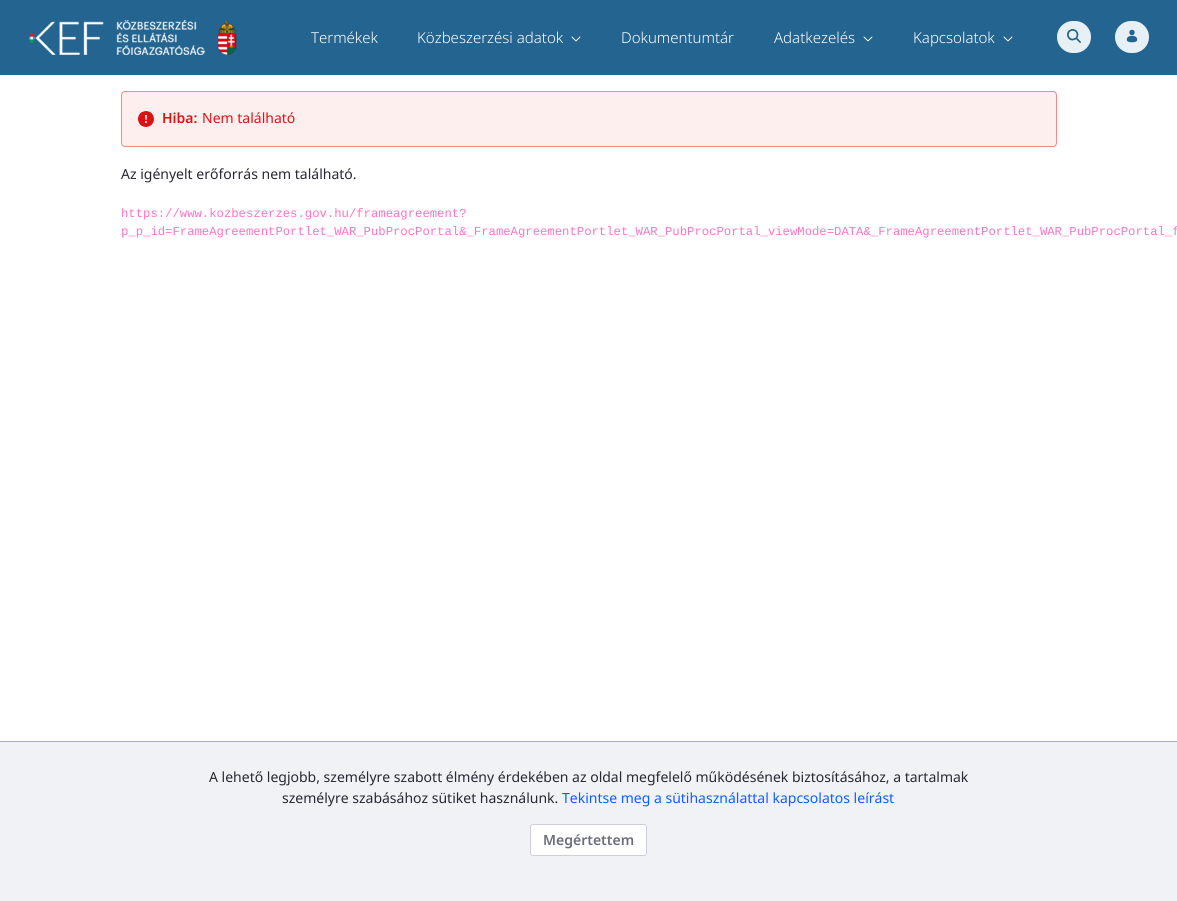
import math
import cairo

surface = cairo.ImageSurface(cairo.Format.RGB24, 1177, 901)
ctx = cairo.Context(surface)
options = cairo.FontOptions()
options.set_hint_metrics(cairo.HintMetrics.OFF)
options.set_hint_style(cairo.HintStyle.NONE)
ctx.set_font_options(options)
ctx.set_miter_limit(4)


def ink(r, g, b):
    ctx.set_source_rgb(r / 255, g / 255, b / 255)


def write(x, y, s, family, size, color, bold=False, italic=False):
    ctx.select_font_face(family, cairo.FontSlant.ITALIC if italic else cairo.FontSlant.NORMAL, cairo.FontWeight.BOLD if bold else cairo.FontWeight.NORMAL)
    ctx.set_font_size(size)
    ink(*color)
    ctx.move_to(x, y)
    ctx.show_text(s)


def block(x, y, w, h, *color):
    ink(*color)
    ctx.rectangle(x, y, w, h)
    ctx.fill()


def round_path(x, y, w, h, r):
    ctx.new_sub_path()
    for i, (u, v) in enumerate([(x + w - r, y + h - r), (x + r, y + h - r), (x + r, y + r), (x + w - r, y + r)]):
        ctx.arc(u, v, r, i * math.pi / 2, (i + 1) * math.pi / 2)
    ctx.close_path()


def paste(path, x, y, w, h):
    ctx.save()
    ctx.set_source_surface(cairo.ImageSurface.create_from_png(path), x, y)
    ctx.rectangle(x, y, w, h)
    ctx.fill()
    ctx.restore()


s1 = dict(family="Noto Sans Light", size=15, color=(255, 255, 255))
s2 = dict(family="Noto Sans SemiBold", size=14, color=(218, 20, 20))
s3 = dict(family="Noto Sans", size=14, color=(218, 20, 20))
s4 = dict(family="Noto Sans", size=14, color=(39, 40, 51))
s5 = dict(family="Liberation Mono", size=12.25, color=(255, 115, 195))
s6 = dict(family="Noto Sans", size=14, color=(11, 95, 255))
s7 = dict(family="Noto Sans SemiBold", size=14, color=(107, 108, 126))

ink(255, 255, 255)
ctx.paint()
block(0, 0, 1177, 75, 36, 100, 144)
paste("pic1.png", 29, 20, 208, 35)
write(311, 43, "Termékek", **s1)
write(417, 43, "Közbeszerzési adatok", **s1)
paste("pic2.png", 571, 36, 10, 6)
write(621, 43, "Dokumentumtár", **s1)
write(774, 43, "Adatkezelés", **s1)
paste("pic2.png", 863, 36, 10, 6)
write(913, 43, "Kapcsolatok", **s1)
paste("pic2.png", 1003, 36, 10, 6)
ink(231, 241, 245)
round_path(1057, 21, 34, 32, 16)
ctx.fill()
paste("pic3.png", 1067, 29, 14, 14)
round_path(1115, 21, 34, 32, 16)
ctx.fill()
paste("pic4.png", 1126, 29, 12, 14)
ink(254, 239, 239)
round_path(121.5, 91.5, 935, 55, 3.5)
ctx.fill_preserve()
ink(244, 137, 137)
ctx.set_line_width(1)
ctx.stroke()
paste("pic5.png", 138, 111, 16, 16)
write(162, 123, "Hiba:", **s2)
write(202, 123, "Nem található", **s3)
write(121, 179, "Az igényelt erőforrás nem található.", **s4)
write(121, 217, "https://www.kozbeszerzes.gov.hu/frameagreement?", **s5)
write(121, 235, "p_p_id=FrameAgreementPortlet_WAR_PubProcPortal&_FrameAgreementPortlet_WAR_PubProcPortal_viewMode=DATA&_FrameAgreementPortlet_WAR_PubProcPortal_f", **s5)
block(0, 742, 1177, 159, 241, 242, 245)
block(0, 741, 1177, 1, 167, 169, 188)
write(209, 782, "A lehető legjobb, személyre szabott élmény érdekében az oldal megfelelő működésének biztosításához, a tartalmak", **s4)
write(282, 803, "személyre szabásához sütiket használunk.", **s4)
write(562, 803, "Tekintse meg a sütihasználattal kapcsolatos leírást", **s6)
ink(255, 255, 255)
round_path(530.5, 824.5, 116, 31, 2.5)
ctx.fill_preserve()
ink(205, 206, 217)
ctx.stroke()
write(543, 845, "Megértettem", **s7)
surface.write_to_png("screenshot.png")
